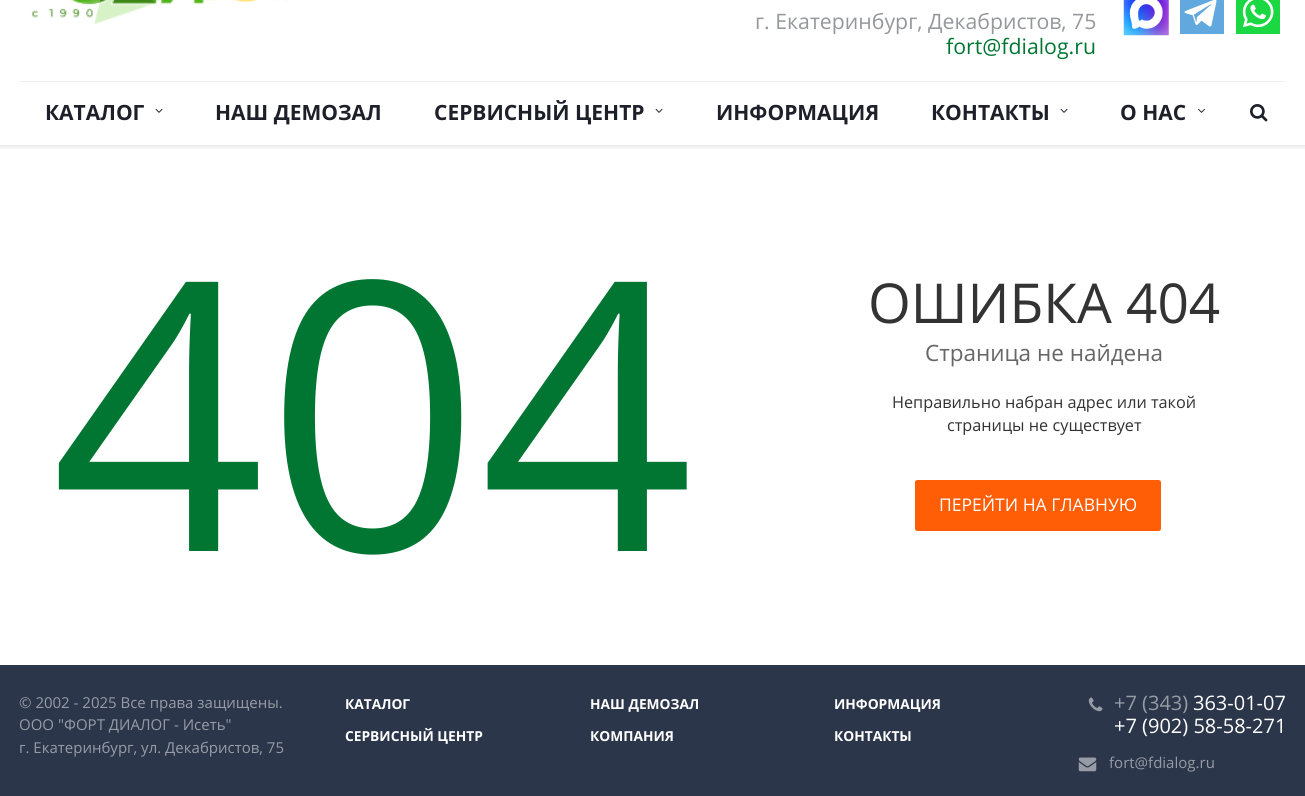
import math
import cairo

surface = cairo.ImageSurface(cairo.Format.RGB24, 1305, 796)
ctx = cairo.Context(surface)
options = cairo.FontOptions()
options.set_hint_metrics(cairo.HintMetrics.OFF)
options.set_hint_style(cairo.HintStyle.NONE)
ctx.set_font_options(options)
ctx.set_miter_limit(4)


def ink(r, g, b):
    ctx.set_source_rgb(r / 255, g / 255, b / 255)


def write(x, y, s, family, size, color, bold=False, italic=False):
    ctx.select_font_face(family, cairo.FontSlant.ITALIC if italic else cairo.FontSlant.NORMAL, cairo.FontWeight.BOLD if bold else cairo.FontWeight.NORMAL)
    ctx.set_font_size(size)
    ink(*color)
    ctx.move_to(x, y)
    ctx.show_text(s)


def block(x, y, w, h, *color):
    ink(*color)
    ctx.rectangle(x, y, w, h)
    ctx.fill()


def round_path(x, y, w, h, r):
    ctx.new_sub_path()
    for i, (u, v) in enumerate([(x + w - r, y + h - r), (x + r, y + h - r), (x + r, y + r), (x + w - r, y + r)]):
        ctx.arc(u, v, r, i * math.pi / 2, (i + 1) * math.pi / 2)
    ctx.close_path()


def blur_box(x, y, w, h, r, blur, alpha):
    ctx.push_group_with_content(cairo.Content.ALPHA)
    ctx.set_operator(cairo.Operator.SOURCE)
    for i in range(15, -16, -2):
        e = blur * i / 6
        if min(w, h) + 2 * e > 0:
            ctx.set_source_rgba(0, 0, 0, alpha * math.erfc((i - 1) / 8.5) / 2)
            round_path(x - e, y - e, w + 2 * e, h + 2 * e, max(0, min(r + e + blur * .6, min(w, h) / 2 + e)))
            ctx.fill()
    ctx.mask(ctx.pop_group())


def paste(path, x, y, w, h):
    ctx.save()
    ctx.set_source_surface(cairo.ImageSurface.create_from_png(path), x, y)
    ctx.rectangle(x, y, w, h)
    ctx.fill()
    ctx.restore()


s1 = dict(family="Open Sans", size=21.25, color=(149, 151, 154))
s2 = dict(family="Open Sans", size=21.25, color=(0, 118, 50))
s3 = dict(family="Open Sans", size=21, color=(29, 32, 41), bold=True)
s4 = dict(family="Open Sans", size=375, color=(0, 118, 50))
s5 = dict(family="Open Sans", size=55, color=(51, 51, 51))
s6 = dict(family="Open Sans", size=22.5, color=(102, 102, 102))
s7 = dict(family="Open Sans", size=16.25, color=(51, 51, 51))
s8 = dict(family="Open Sans", size=17.5, color=(255, 255, 255))
s9 = dict(family="Open Sans", size=15, color=(150, 155, 165))
s10 = dict(family="Open Sans", size=13.75, color=(255, 255, 255), bold=True)
s11 = dict(family="Open Sans", size=20, color=(150, 155, 165))
s12 = dict(family="Open Sans", size=20, color=(255, 255, 255))

ink(255, 255, 255)
ctx.paint()
ctx.save()
ctx.rectangle(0, 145, 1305, 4)
ctx.clip()
ink(0, 0, 0)
blur_box(0, -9, 1305, 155, 0, 3, 0.14)
ctx.restore()
paste("pic1.png", 19, 0, 296, 24)
write(755, 29, "г. Екатеринбург, Декабристов, 75", **s1)
write(946, 54, "fort@fdialog.ru", **s2)
paste("pic2.png", 1123, 0, 46, 36)
paste("pic3.png", 1180, 0, 44, 34)
paste("pic4.png", 1236, 0, 44, 34)
block(19, 81, 1267, 1, 239, 239, 239)
write(45, 120, "КАТАЛОГ", **s3)
paste("pic5.png", 155, 108, 8, 5)
write(215, 120, "НАШ ДЕМОЗАЛ", **s3)
write(434, 120, "СЕРВИСНЫЙ ЦЕНТР", **s3)
paste("pic5.png", 655, 108, 8, 5)
write(716, 120, "ИНФОРМАЦИЯ", **s3)
write(931, 120, "КОНТАКТЫ", **s3)
paste("pic5.png", 1060, 108, 8, 5)
write(1120, 120, "О НАС", **s3)
paste("pic6.png", 1198, 108, 7, 5)
paste("pic7.png", 1250, 104, 18, 18)
write(51, 551, "404", **s4)
write(868, 323, "ОШИБКА 404", **s5)
write(925, 361, "Страница не найдена", **s6)
write(892, 408, "Неправильно набран адрес или такой", **s7)
write(947, 431, "страницы не существует", **s7)
ink(255, 93, 6)
round_path(915.5, 480.5, 245, 50, 2)
ctx.fill_preserve()
ctx.set_line_width(1)
ctx.stroke()
write(939, 511, "ПЕРЕЙТИ НА ГЛАВНУЮ", **s8)
block(0, 665, 1305, 131, 44, 54, 74)
write(19, 708, "© 2002 - 2025 Все права защищены.", **s9)
write(19, 730, "ООО \"ФОРТ ДИАЛОГ - Исеть\"", **s9)
write(19, 753, "г. Екатеринбург, ул. Декабристов, 75", **s9)
write(345, 709, "КАТАЛОГ", **s10)
write(590, 709, "НАШ ДЕМОЗАЛ", **s10)
write(834, 709, "ИНФОРМАЦИЯ", **s10)
write(345, 741, "СЕРВИСНЫЙ ЦЕНТР", **s10)
write(590, 741, "КОМПАНИЯ", **s10)
write(834, 741, "КОНТАКТЫ", **s10)
paste("pic8.png", 1088, 697, 15, 15)
write(1114, 710, "+7 (343)", **s11)
write(1193, 710, "363-01-07", **s12)
write(1114, 733, "+7 (902) 58-58-271", **s12)
paste("pic9.png", 1078, 757, 19, 15)
write(1109, 768, "fort@fdialog.ru", **s9)
surface.write_to_png("screenshot.png")
